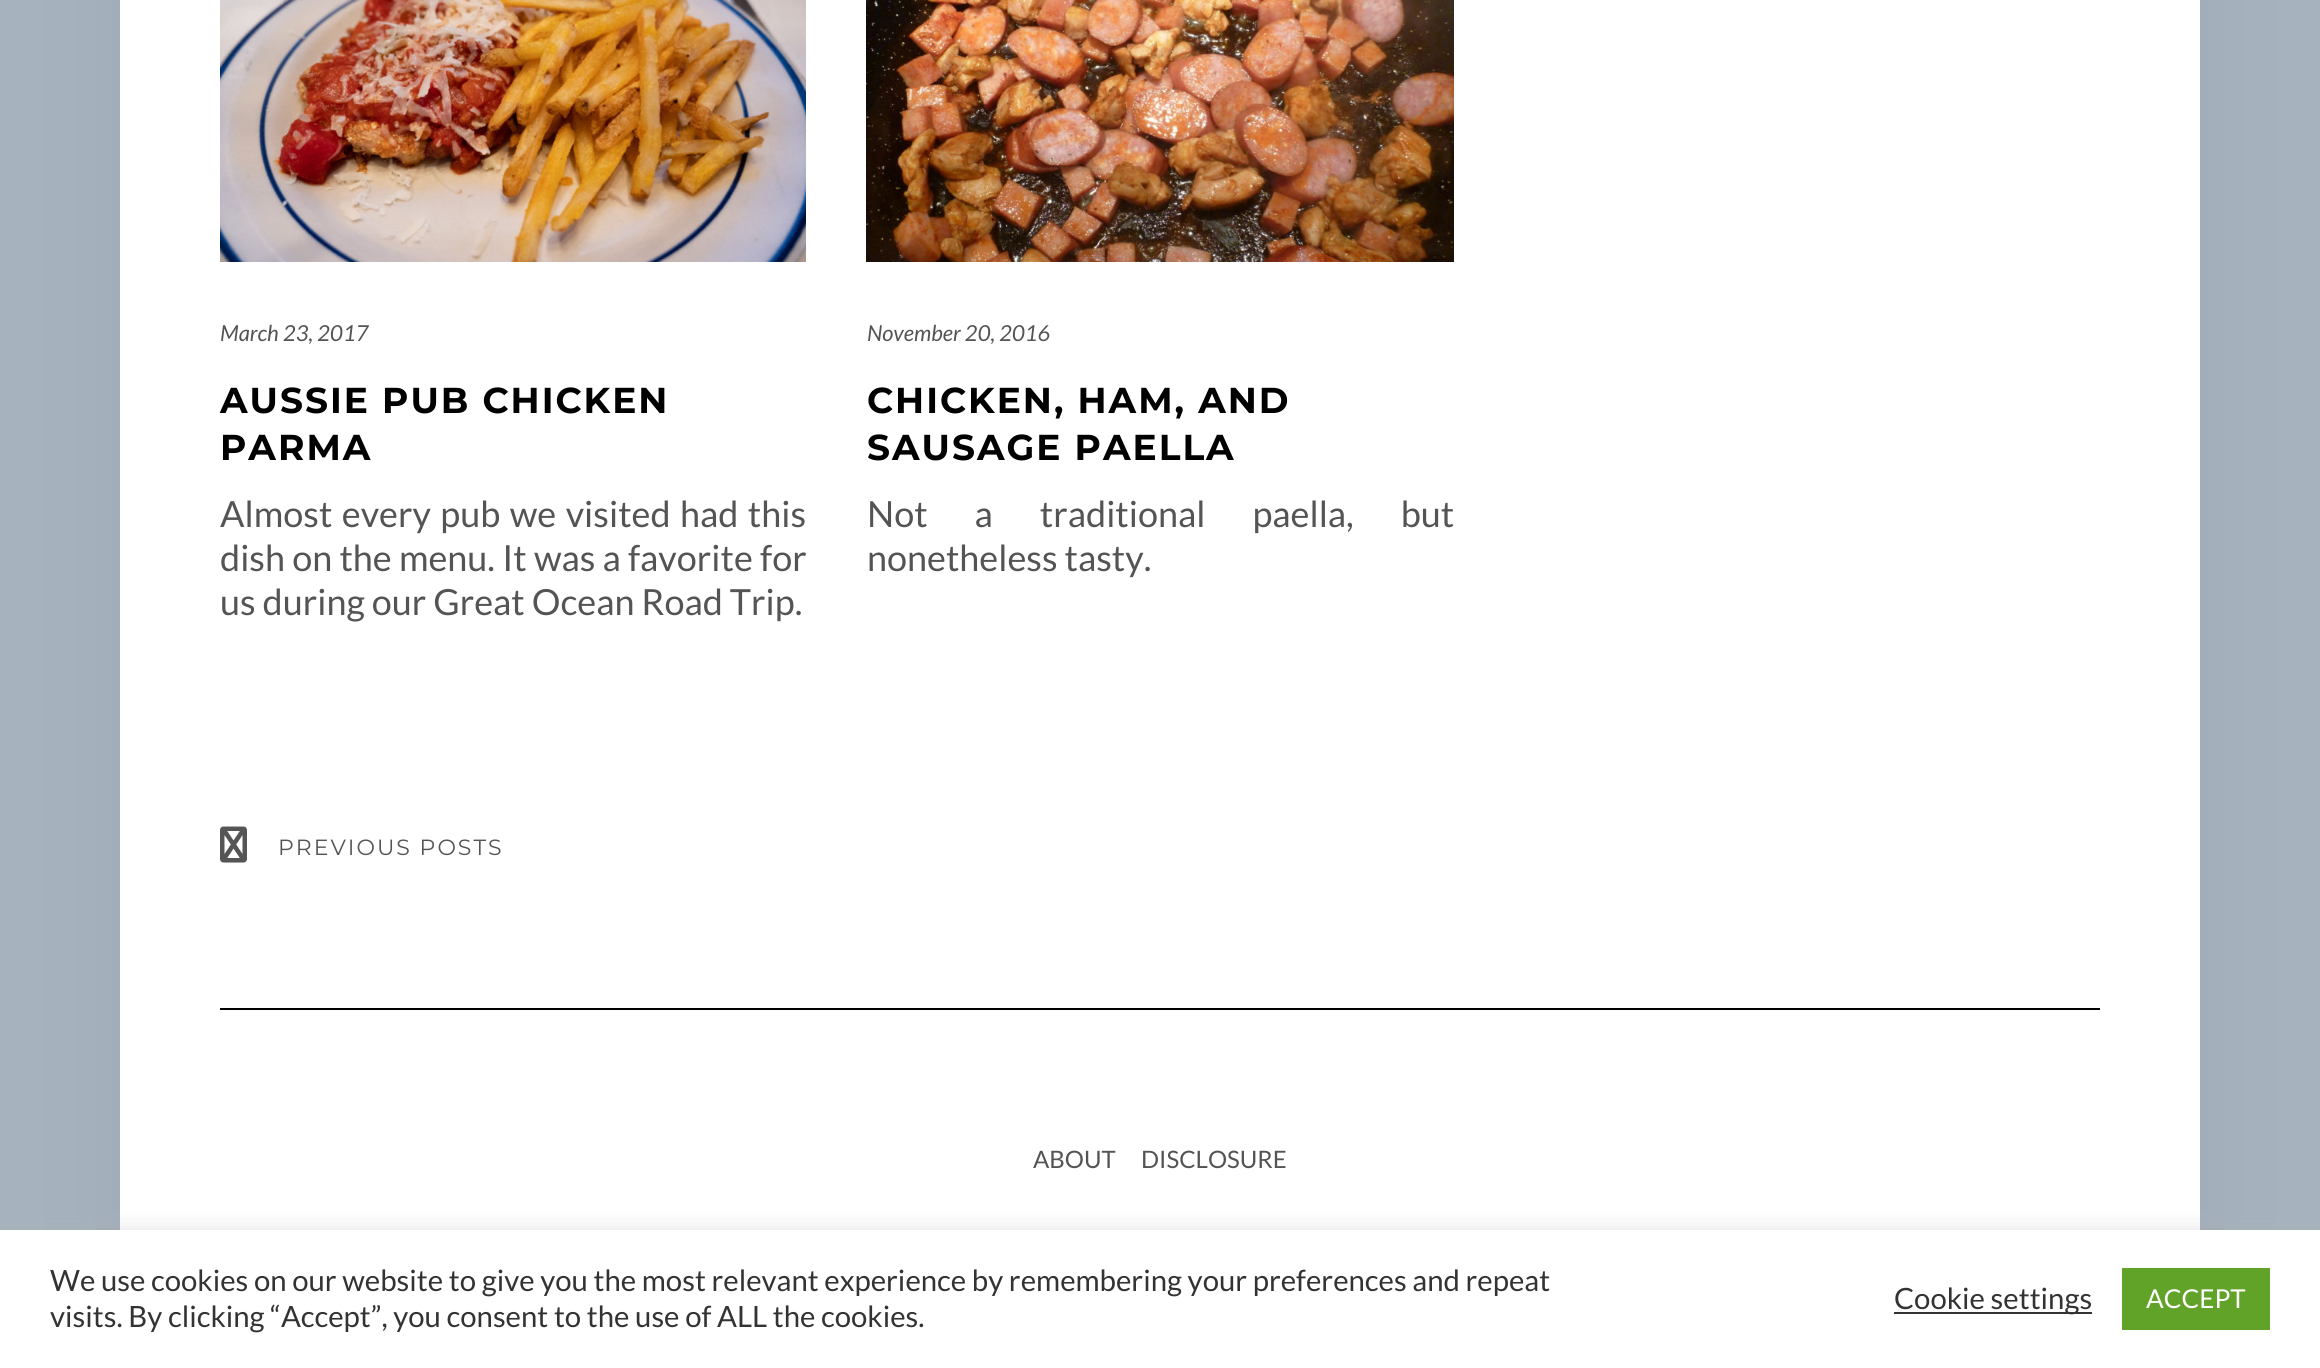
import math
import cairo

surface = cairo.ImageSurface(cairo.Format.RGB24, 2320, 1368)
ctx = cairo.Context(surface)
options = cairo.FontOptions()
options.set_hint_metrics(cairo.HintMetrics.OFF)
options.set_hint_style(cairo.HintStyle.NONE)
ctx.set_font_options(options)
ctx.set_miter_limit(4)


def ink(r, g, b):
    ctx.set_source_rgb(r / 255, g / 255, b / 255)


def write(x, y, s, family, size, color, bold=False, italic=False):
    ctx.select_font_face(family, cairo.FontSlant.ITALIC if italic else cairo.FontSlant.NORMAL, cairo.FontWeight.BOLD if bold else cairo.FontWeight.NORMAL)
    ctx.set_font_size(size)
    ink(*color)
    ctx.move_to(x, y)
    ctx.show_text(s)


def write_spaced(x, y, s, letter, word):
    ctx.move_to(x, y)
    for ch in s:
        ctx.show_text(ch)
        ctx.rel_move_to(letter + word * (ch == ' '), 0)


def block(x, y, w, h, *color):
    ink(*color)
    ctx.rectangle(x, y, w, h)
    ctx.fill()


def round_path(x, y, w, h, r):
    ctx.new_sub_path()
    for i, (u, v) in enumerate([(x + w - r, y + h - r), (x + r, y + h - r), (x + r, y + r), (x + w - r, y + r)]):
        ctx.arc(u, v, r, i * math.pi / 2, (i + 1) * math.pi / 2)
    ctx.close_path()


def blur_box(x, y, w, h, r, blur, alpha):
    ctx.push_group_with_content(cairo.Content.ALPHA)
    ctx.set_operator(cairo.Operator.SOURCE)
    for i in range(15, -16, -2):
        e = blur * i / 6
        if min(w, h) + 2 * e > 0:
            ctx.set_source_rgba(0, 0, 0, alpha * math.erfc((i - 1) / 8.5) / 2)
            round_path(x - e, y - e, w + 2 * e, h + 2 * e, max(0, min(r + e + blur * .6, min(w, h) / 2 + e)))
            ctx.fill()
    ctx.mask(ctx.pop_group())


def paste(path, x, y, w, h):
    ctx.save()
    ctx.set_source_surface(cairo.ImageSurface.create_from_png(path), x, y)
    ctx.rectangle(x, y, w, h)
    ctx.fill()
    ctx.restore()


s1 = dict(family="Lato", size=22, color=(84, 84, 84), italic=True)
s2 = dict(family="Lato", size=36, color=(84, 84, 84))
s3 = dict(family="Lato", size=24, color=(84, 84, 84))
s4 = dict(family="Lato", size=29.33, color=(51, 51, 51))
s5 = dict(family="Lato", size=26, color=(255, 255, 255))

ink(166, 179, 191)
ctx.paint()
ink(0, 0, 0)
blur_box(120, -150, 2080, 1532, 0, 50, 0.06)
block(120, 0, 2080, 1230, 255, 255, 255)
paste("pic1.png", 220, 0, 586, 262)
write(220, 341, "March 23, 2017", **s1)
ctx.select_font_face("Montserrat", cairo.FontSlant.NORMAL, cairo.FontWeight.BOLD)
ctx.set_font_size(36)
ink(0, 0, 0)
write_spaced(220, 413, "AUSSIE PUB CHICKEN", 2, 0)
write_spaced(220, 460, "PARMA", 2, 0)
ctx.select_font_face("Lato")
ink(84, 84, 84)
write_spaced(220, 527, "Almost every pub we visited had this", 0, 2.5)
write_spaced(220, 571, "dish on the menu. It was a favorite for", 0, 0.25)
write(220, 615, "us during our Great Ocean Road Trip.", **s2)
paste("pic2.png", 866, 0, 588, 262)
write(867, 341, "November 20, 2016", **s1)
ctx.select_font_face("Montserrat", cairo.FontSlant.NORMAL, cairo.FontWeight.BOLD)
ctx.set_font_size(36)
ink(0, 0, 0)
write_spaced(867, 413, "CHICKEN, HAM, AND", 2, 0)
write_spaced(867, 460, "SAUSAGE PAELLA", 2, 0)
ctx.select_font_face("Lato")
ink(84, 84, 84)
write_spaced(867, 527, "Not a traditional paella, but", 0, 40)
write(867, 571, "nonetheless tasty.", **s2)
paste("pic3.png", 220, 826, 27, 37)
ctx.select_font_face("Montserrat")
ctx.set_font_size(22)
write_spaced(278, 855, "PREVIOUS POSTS", 2, 0)
block(220, 1008, 1880, 2, 0, 0, 0)
write(1033, 1168, "ABOUT", **s3)
write(1141, 1168, "DISCLOSURE", **s3)
ink(172, 171, 171)
blur_box(0, 1228, 2320, 138, 0, 10, 0.3)
block(0, 1230, 2320, 138, 255, 255, 255)
write(50, 1291, "We use cookies on our website to give you the most relevant experience by remembering your preferences and repeat", **s4)
write(50, 1327, "visits. By clicking “Accept”, you consent to the use of ALL the cookies.", **s4)
block(1894, 1312, 198, 2, 51, 51, 51)
write(1894, 1309, "Cookie settings", **s4)
block(2122, 1268, 148, 62, 97, 162, 41)
write(2146, 1308, "ACCEPT", **s5)
surface.write_to_png("screenshot.png")
